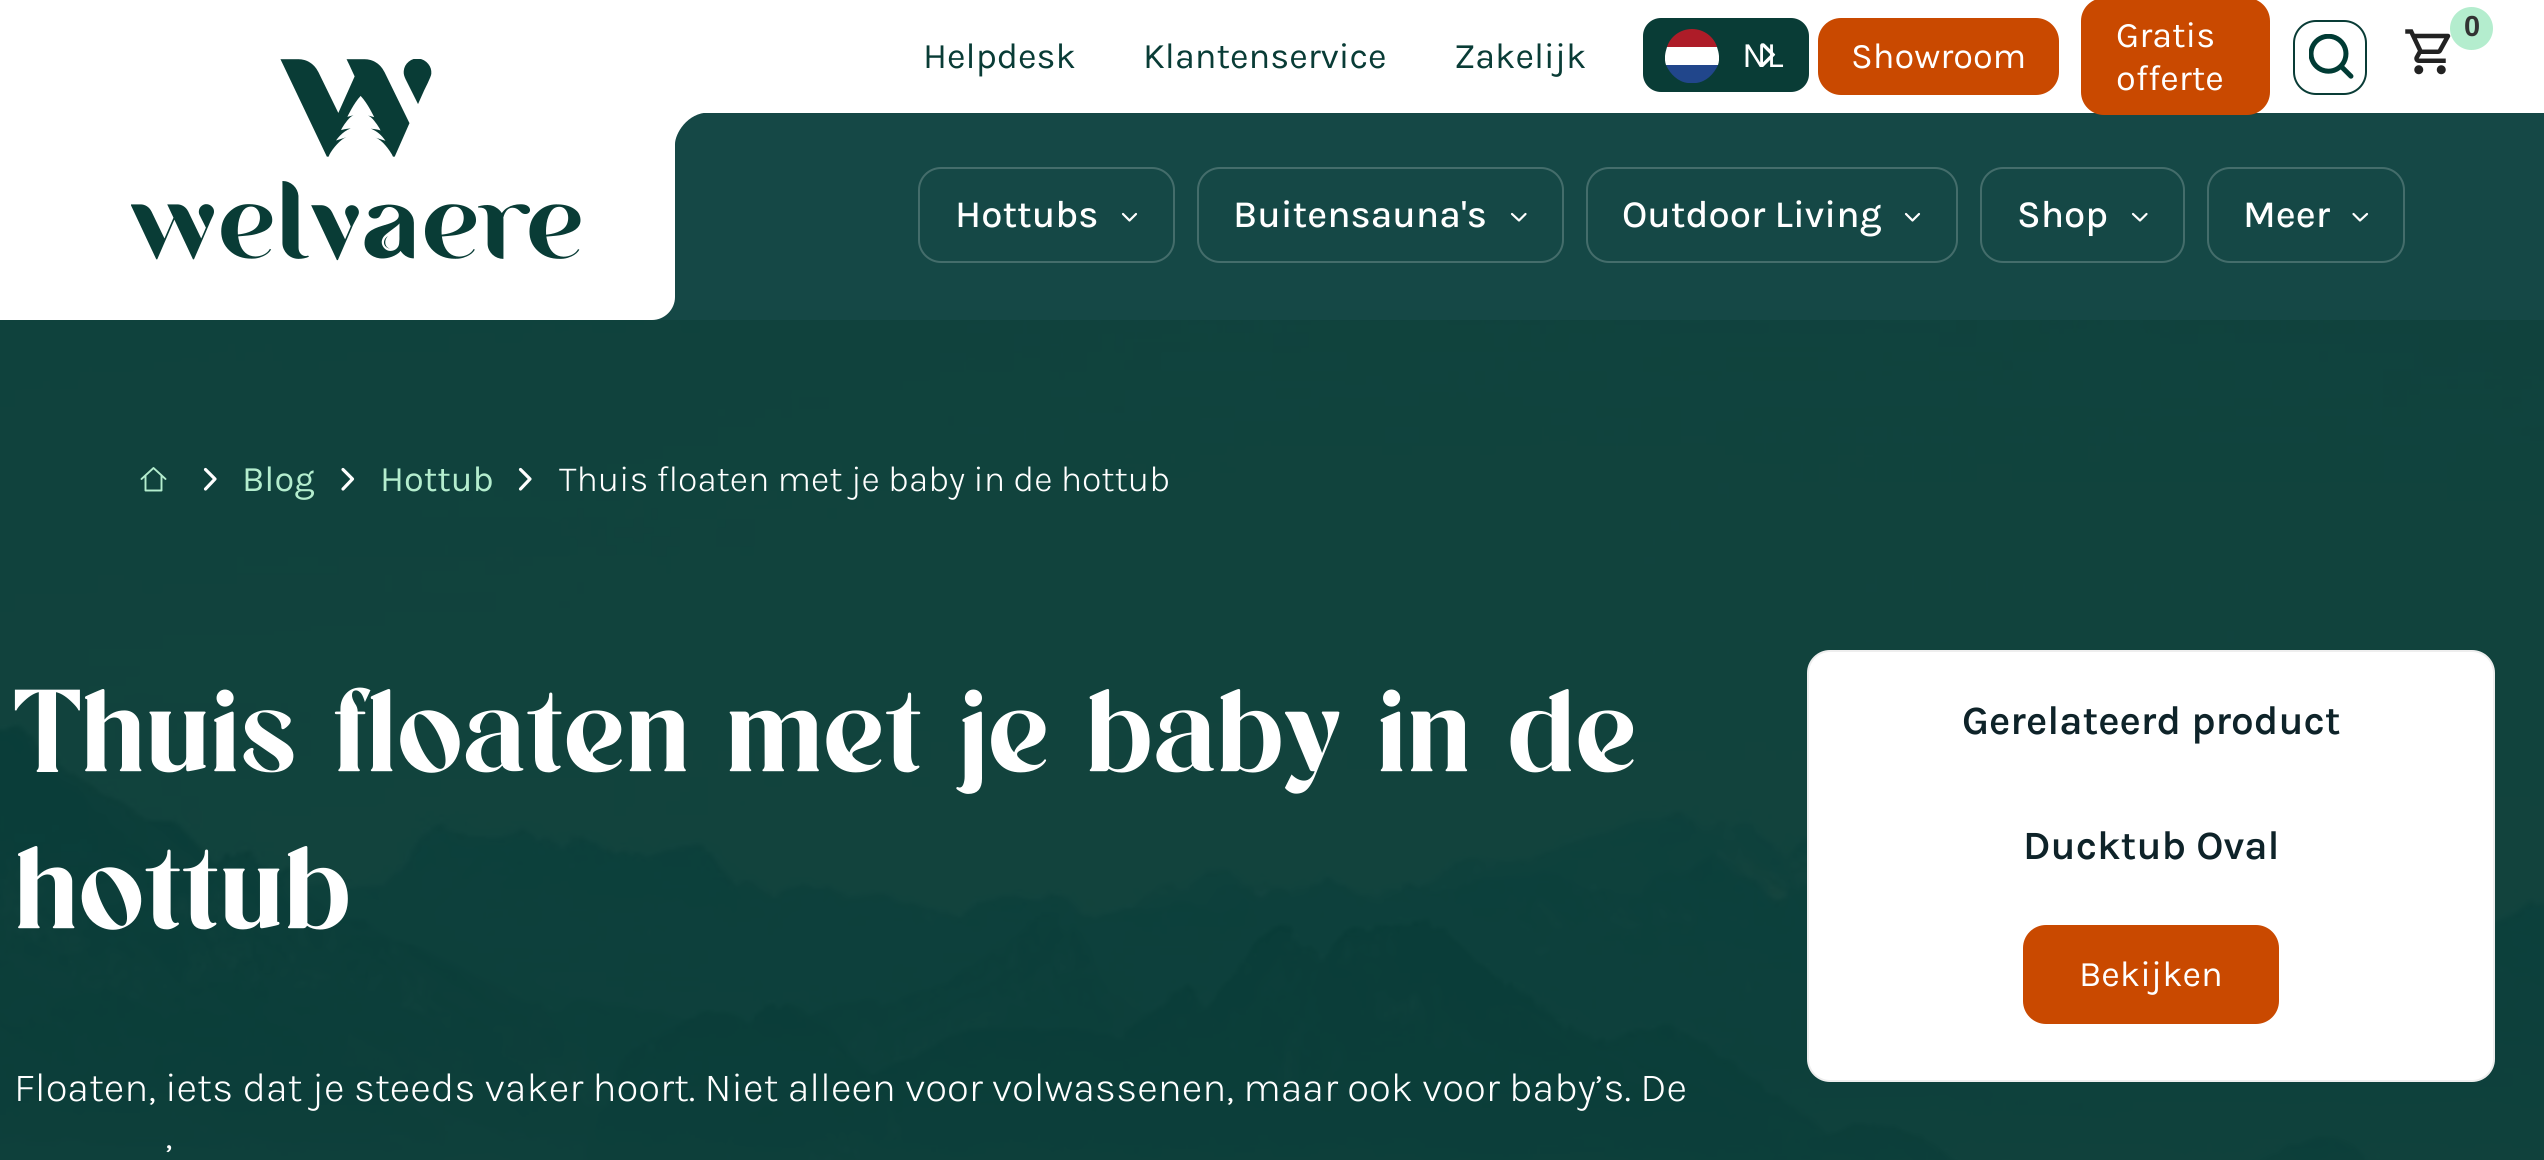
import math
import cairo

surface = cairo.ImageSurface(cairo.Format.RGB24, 2544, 1160)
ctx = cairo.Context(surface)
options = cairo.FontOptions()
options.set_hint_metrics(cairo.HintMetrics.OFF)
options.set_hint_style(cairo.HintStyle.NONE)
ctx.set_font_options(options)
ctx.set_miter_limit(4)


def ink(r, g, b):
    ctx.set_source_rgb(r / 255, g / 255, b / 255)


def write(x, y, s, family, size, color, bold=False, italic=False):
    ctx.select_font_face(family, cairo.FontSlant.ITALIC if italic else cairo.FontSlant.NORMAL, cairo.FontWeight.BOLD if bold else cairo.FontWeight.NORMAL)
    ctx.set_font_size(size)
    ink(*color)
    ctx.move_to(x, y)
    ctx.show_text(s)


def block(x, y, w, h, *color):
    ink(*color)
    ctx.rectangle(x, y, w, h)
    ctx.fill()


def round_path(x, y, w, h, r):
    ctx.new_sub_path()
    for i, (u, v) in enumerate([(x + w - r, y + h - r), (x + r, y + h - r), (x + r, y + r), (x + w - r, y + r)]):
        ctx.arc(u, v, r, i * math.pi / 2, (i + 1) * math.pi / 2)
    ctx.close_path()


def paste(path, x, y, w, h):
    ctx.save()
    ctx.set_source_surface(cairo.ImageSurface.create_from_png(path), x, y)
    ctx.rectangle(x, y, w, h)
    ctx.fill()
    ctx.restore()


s1 = dict(family="Karla", size=36, color=(9, 60, 54))
s2 = dict(family="Karla", size=36, color=(255, 255, 255))
s3 = dict(family="Liberation Sans", size=29, color=(51, 51, 51), bold=True)
s4 = dict(family="Karla Medium", size=38.25, color=(255, 255, 255))
s5 = dict(family="Karla", size=36, color=(180, 237, 206))
s6 = dict(family="Karla Light", size=36, color=(255, 255, 255))
s7 = dict(family="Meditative", size=130.5, color=(255, 255, 255))
s8 = dict(family="Karla Light", size=40.5, color=(255, 255, 255))
s9 = dict(family="Karla SemiBold", size=40.5, color=(14, 35, 41))

ink(9, 60, 54)
ctx.paint()
paste("pic5.png", 0, 113, 2544, 1047)
ctx.set_source_rgba(0.086, 0.286, 0.278, 0.95)
ctx.rectangle(652, 113, 1892, 207)
ctx.fill()
ink(255, 255, 255)
ctx.new_path()
ctx.move_to(1, 1)
ctx.line_to(674, 1)
ctx.line_to(674, 297)
ctx.curve_to(674, 309, 664, 319, 652, 319)
ctx.line_to(1, 319)
ctx.close_path()
ctx.fill_preserve()
ctx.stroke()
paste("pic1.png", 131, 59, 450, 202)
block(675, 0, 1869, 113, 255, 255, 255)
write(923, 68, "Helpdesk", **s1)
write(1143, 68, "Klantenservice", **s1)
write(1454, 68, "Zakelijk", **s1)
round_path(1643, 18, 166, 74, 18)
ctx.fill()
write(1742, 67, "NL", **s2)
paste("pic2.png", 1761, 43, 15, 24)
ink(174, 28, 40)
ctx.new_path()
ctx.move_to(1692, 29)
ctx.curve_to(1704, 29, 1714, 37, 1717, 47)
ctx.line_to(1667, 47)
ctx.curve_to(1670, 37, 1680, 29, 1692, 29)
ctx.close_path()
ctx.fill()
ctx.save()
ctx.rectangle(1665, 29, 54, 54)
ctx.clip()
ink(255, 255, 255)
ctx.new_path()
ctx.move_to(1666, 65)
ctx.curve_to(1664, 59, 1665, 53, 1667, 47)
ctx.line_to(1717, 47)
ctx.curve_to(1719, 53, 1720, 59, 1718, 65)
ctx.close_path()
ctx.fill()
ctx.restore()
ink(33, 70, 139)
ctx.new_path()
ctx.move_to(1688, 83)
ctx.curve_to(1678, 82, 1670, 74, 1666, 65)
ctx.line_to(1718, 65)
ctx.curve_to(1714, 74, 1706, 82, 1696, 83)
ctx.close_path()
ctx.fill()
ink(201, 73, 0)
round_path(1818, 18, 241, 77, 23)
ctx.fill()
write(1851, 68, "Showroom", **s2)
ink(201, 73, 0)
round_path(2081, -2, 189, 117, 23)
ctx.fill()
write(2116, 47, "Gratis", **s2)
write(2116, 90, "offerte", **s2)
round_path(2294, 21, 72, 73, 22)
ink(9, 60, 54)
ctx.stroke()
paste("pic3.png", 2309, 34, 45, 45)
paste("pic4.png", 2405, 29, 46, 46)
ink(180, 237, 206)
ctx.arc(2471.5, 28.5, 21.5, 0, 2 * math.pi)
ctx.fill()
write(2464, 36, "0", **s3)
ctx.save()
ctx.rectangle(675, 113, 34, 33)
ctx.clip()
ink(255, 255, 255)
ctx.new_path()
ctx.move_to(709, 112.5)
ctx.curve_to(687, 112.5, 675, 134, 675, 144)
ctx.line_to(675, 112.5)
ctx.close_path()
ctx.fill()
ctx.restore()
round_path(919, 168, 255, 94, 22)
ink(68, 109, 107)
ctx.stroke()
write(955, 227, "Hottubs", **s4)
ctx.new_path()
ctx.move_to(1123, 214)
ctx.line_to(1129.5, 220.5)
ctx.line_to(1136, 214)
ctx.set_line_width(2.2)
ctx.set_line_cap(cairo.LineCap.ROUND)
ctx.set_line_join(cairo.LineJoin.ROUND)
ctx.stroke()
round_path(1198, 168, 365, 94, 22)
ink(68, 109, 107)
ctx.set_line_width(2)
ctx.set_line_cap(cairo.LineCap.BUTT)
ctx.set_line_join(cairo.LineJoin.MITER)
ctx.stroke()
write(1233, 227, "Buitensauna's", **s4)
ctx.new_path()
ctx.move_to(1512, 214)
ctx.line_to(1519, 220.5)
ctx.line_to(1525.5, 214)
ctx.set_line_width(2.2)
ctx.set_line_cap(cairo.LineCap.ROUND)
ctx.set_line_join(cairo.LineJoin.ROUND)
ctx.stroke()
round_path(1587, 168, 370, 94, 22)
ink(68, 109, 107)
ctx.set_line_width(2)
ctx.set_line_cap(cairo.LineCap.BUTT)
ctx.set_line_join(cairo.LineJoin.MITER)
ctx.stroke()
write(1622, 227, "Outdoor Living", **s4)
ctx.new_path()
ctx.move_to(1906, 214)
ctx.line_to(1912.5, 220.5)
ctx.line_to(1919, 214)
ctx.set_line_width(2.2)
ctx.set_line_cap(cairo.LineCap.ROUND)
ctx.set_line_join(cairo.LineJoin.ROUND)
ctx.stroke()
round_path(1981, 168, 203, 94, 22)
ink(68, 109, 107)
ctx.set_line_width(2)
ctx.set_line_cap(cairo.LineCap.BUTT)
ctx.set_line_join(cairo.LineJoin.MITER)
ctx.stroke()
write(2017, 227, "Shop", **s4)
ctx.new_path()
ctx.move_to(2133, 214)
ctx.line_to(2140, 220.5)
ctx.line_to(2146.5, 214)
ctx.set_line_width(2.2)
ctx.set_line_cap(cairo.LineCap.ROUND)
ctx.set_line_join(cairo.LineJoin.ROUND)
ctx.stroke()
round_path(2208, 168, 196, 94, 22)
ink(68, 109, 107)
ctx.set_line_width(2)
ctx.set_line_cap(cairo.LineCap.BUTT)
ctx.set_line_join(cairo.LineJoin.MITER)
ctx.stroke()
write(2243, 227, "Meer", **s4)
ctx.new_path()
ctx.move_to(2353.5, 214)
ctx.line_to(2360, 220.5)
ctx.line_to(2367, 214)
ctx.set_line_width(2.2)
ctx.set_line_cap(cairo.LineCap.ROUND)
ctx.set_line_join(cairo.LineJoin.ROUND)
ctx.stroke()
ctx.new_path()
ctx.move_to(145.5, 476)
ctx.line_to(145.5, 490.5)
ctx.line_to(161.5, 490.5)
ctx.line_to(161.5, 476)
ctx.move_to(141.5, 479)
ctx.line_to(153.5, 468)
ctx.line_to(165.5, 479)
ink(180, 237, 206)
ctx.set_line_width(1.9)
ctx.stroke()
ctx.new_path()
ctx.move_to(205.5, 489)
ctx.line_to(215, 479)
ctx.line_to(205.5, 469.5)
ink(255, 255, 255)
ctx.set_line_width(3.2)
ctx.stroke()
write(242, 491, "Blog", **s5)
ctx.new_path()
ctx.move_to(343, 489)
ctx.line_to(352.5, 479)
ctx.line_to(343, 469.5)
ink(255, 255, 255)
ctx.stroke()
write(380, 491, "Hottub", **s5)
ctx.new_path()
ctx.move_to(520.5, 489)
ctx.line_to(530, 479)
ctx.line_to(520.5, 469.5)
ink(255, 255, 255)
ctx.stroke()
write(559, 491, "Thuis floaten met je baby in de hottub", **s6)
write(14, 772, "Thuis floaten met je baby in de", **s7)
write(14, 929, "hottub", **s7)
write(14, 1101, "Floaten, iets dat je steeds vaker hoort. Niet alleen voor volwassenen, maar ook voor baby’s. De", **s8)
write(166, 1170, "’", **s8)
round_path(1807, 650, 688, 432, 23)
ctx.fill()
round_path(1808, 651, 686, 430, 22)
ctx.set_source_rgba(0, 0, 0, 0.07)
ctx.set_line_width(2)
ctx.set_line_cap(cairo.LineCap.BUTT)
ctx.set_line_join(cairo.LineJoin.MITER)
ctx.stroke()
write(1962, 734, "Gerelateerd product", **s9)
write(2023, 859, "Ducktub Oval", **s9)
ink(201, 73, 0)
round_path(2023, 925, 256, 99, 23)
ctx.fill()
write(2079, 986, "Bekijken", **s2)
surface.write_to_png("screenshot.png")
